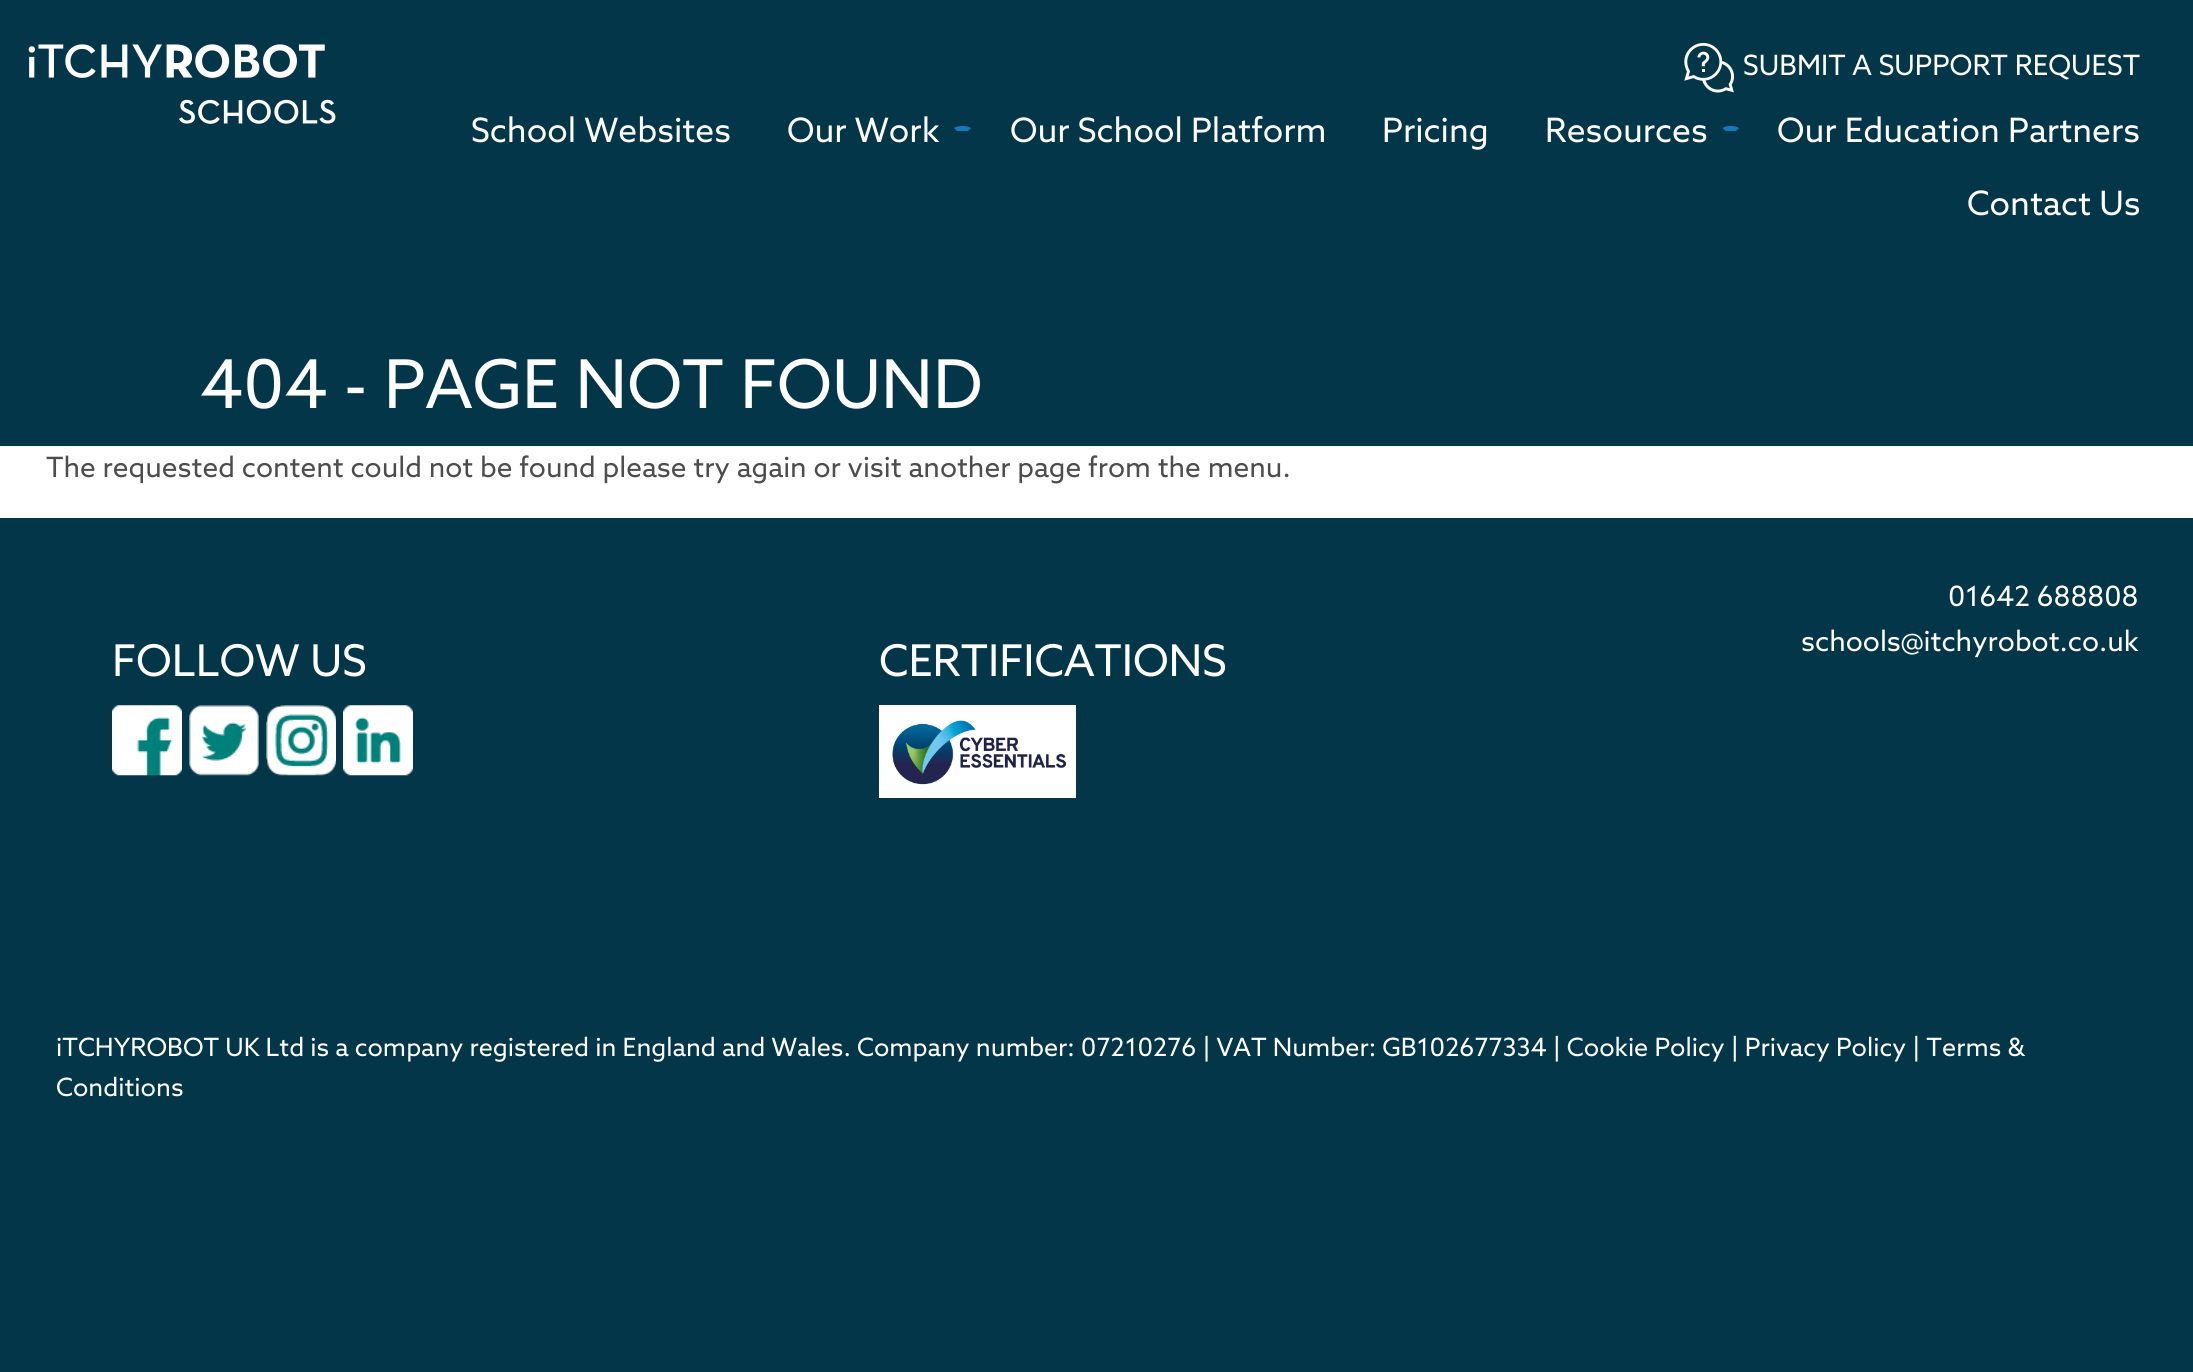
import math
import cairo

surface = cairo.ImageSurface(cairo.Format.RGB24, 2193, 1372)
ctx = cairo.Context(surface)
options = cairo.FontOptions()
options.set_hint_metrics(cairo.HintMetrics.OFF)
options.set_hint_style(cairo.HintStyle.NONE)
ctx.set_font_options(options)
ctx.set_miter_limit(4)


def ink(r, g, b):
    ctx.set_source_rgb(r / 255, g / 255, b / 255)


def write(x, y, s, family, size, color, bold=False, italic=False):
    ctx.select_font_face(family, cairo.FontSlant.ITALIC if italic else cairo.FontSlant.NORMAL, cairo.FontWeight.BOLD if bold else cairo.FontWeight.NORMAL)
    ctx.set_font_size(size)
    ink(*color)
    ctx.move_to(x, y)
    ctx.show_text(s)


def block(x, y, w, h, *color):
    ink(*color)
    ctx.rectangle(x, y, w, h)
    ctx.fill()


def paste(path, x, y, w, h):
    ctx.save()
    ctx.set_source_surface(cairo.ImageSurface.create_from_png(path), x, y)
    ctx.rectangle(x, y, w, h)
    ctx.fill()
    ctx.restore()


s1 = dict(family="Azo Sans", size=28, color=(255, 255, 255))
s2 = dict(family="Azo Sans", size=33.6, color=(255, 255, 255))
s3 = dict(family="Azo Sans", size=67.25, color=(255, 255, 255))
s4 = dict(family="Azo Sans", size=28, color=(77, 77, 77))
s5 = dict(family="Azo Sans", size=43.75, color=(255, 255, 255))
s6 = dict(family="Azo Sans", size=25.2, color=(255, 255, 255))

ink(3, 54, 73)
ctx.paint()
paste("pic1.png", 28, 44, 308, 80)
paste("pic2.png", 1684, 43, 50, 50)
write(1743, 75, "SUBMIT A SUPPORT REQUEST", **s1)
write(471, 142, "School Websites", **s2)
write(787, 142, "Our Work", **s2)
ink(23, 121, 186)
ctx.new_path()
ctx.move_to(962.5, 126)
ctx.curve_to(958.5, 126, 955.5, 127, 954, 128)
ctx.line_to(957, 131)
ctx.line_to(968, 131)
ctx.line_to(971, 128)
ctx.curve_to(969.5, 127, 966.5, 126, 962.5, 126)
ctx.close_path()
ctx.fill()
write(1010, 142, "Our School Platform", **s2)
write(1382, 142, "Pricing", **s2)
write(1545, 142, "Resources", **s2)
ink(23, 121, 186)
ctx.new_path()
ctx.move_to(1731, 126)
ctx.curve_to(1735, 126, 1737.5, 127, 1739, 128)
ctx.line_to(1736, 131)
ctx.line_to(1725.5, 131)
ctx.line_to(1722.5, 128)
ctx.curve_to(1724, 127, 1727, 126, 1731, 126)
ctx.close_path()
ctx.fill()
write(1777, 142, "Our Education Partners", **s2)
write(1967, 215, "Contact Us", **s2)
write(200, 408, "404 - PAGE NOT FOUND", **s3)
block(0, 446, 2193, 72, 255, 255, 255)
write(46, 477, "The requested content could not be found please try again or visit another page from the menu.", **s4)
write(112, 676, "FOLLOW US", **s5)
paste("pic3.png", 112, 705, 70, 71)
paste("pic4.png", 189, 705, 70, 71)
paste("pic5.png", 266, 705, 70, 71)
paste("pic6.png", 343, 705, 70, 71)
write(879, 676, "CERTIFICATIONS", **s5)
block(879, 705, 197, 93, 255, 255, 255)
paste("pic7.png", 892, 720, 175, 65)
write(1948, 606, "01642 688808", **s1)
write(1801, 651, "schools@itchyrobot.co.uk", **s1)
write(56, 1056, "iTCHYROBOT UK Ltd is a company registered in England and Wales. Company number: 07210276 | VAT Number: GB102677334 | Cookie Policy | Privacy Policy | Terms &", **s6)
write(56, 1096, "Conditions", **s6)
surface.write_to_png("screenshot.png")
